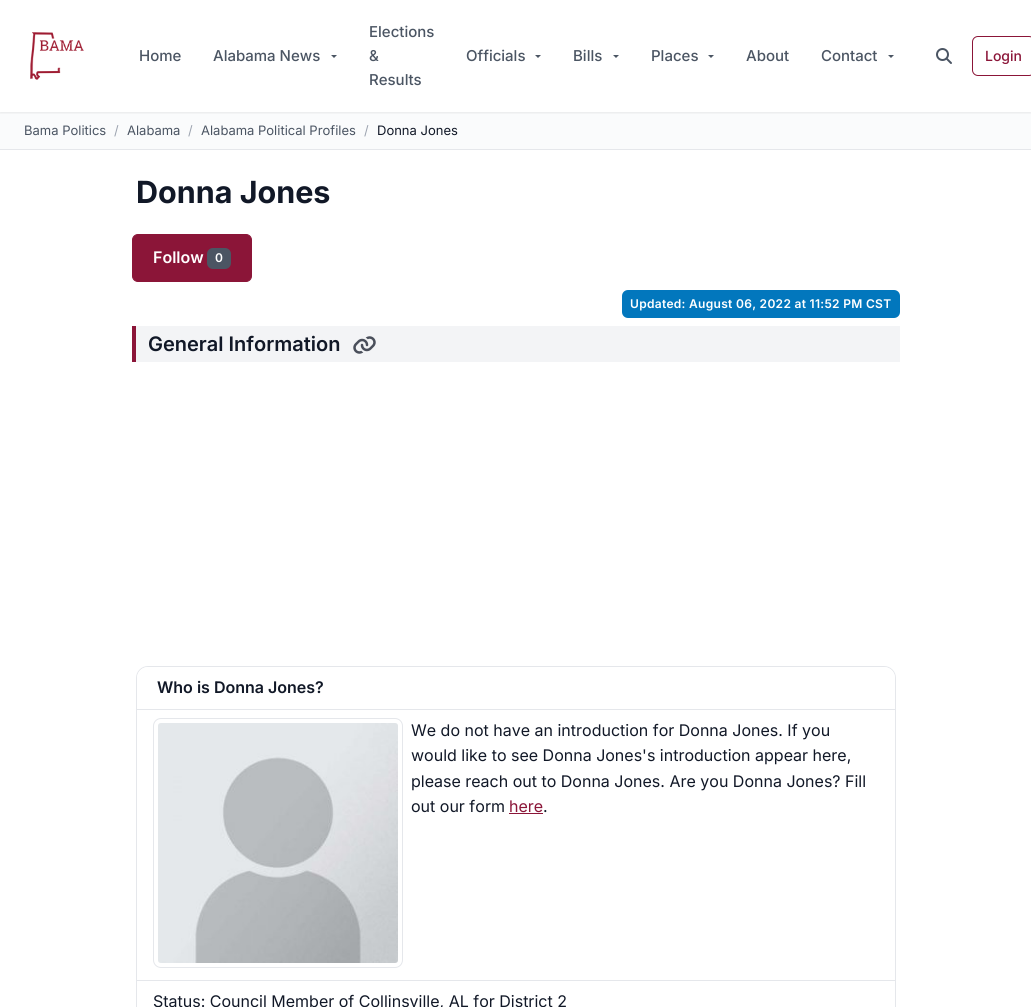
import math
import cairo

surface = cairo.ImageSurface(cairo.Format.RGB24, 1031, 1007)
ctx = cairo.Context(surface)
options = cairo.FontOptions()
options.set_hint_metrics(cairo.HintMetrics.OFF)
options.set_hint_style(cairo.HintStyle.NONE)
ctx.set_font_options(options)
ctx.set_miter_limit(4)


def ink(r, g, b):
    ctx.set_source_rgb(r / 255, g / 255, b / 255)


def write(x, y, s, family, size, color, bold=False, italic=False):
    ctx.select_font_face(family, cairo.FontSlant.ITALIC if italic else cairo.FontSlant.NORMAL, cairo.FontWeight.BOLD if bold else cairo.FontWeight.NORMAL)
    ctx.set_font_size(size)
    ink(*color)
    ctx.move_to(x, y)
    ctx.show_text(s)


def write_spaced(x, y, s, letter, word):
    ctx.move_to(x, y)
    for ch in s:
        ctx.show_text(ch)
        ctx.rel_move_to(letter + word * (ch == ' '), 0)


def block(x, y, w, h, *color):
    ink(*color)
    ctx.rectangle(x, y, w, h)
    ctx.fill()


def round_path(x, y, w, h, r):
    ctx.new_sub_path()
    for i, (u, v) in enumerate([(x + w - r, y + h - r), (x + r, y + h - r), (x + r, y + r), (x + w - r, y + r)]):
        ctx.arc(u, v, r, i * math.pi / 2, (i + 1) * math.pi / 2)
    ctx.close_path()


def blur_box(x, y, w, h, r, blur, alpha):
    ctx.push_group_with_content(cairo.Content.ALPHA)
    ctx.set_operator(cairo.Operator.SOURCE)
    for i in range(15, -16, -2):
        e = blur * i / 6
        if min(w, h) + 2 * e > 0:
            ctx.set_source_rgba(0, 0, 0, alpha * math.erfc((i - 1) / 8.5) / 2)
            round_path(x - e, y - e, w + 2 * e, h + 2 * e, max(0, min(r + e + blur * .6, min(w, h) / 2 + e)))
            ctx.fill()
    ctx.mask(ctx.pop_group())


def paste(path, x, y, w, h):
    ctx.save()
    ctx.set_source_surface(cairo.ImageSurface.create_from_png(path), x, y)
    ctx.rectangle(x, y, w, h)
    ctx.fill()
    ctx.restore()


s1 = dict(family="Inter Medium", size=15, color=(75, 85, 99))
s2 = dict(family="Inter Medium", size=14, color=(139, 21, 56))
s3 = dict(family="Inter", size=13, color=(75, 85, 99))
s4 = dict(family="Inter", size=13, color=(156, 163, 175))
s5 = dict(family="Inter", size=13, color=(17, 24, 39))
s6 = dict(family="Inter", size=30.5, color=(17, 24, 39), bold=True)
s7 = dict(family="Inter SemiBold", size=16, color=(255, 255, 255))
s8 = dict(family="Inter SemiBold", size=20, color=(17, 24, 39))
s9 = dict(family="Inter SemiBold", size=16, color=(17, 24, 39))
s10 = dict(family="Inter", size=16, color=(17, 24, 39))
s11 = dict(family="Inter", size=16, color=(139, 21, 56))

ink(255, 255, 255)
ctx.paint()
block(0, 112, 1031, 37, 250, 251, 252)
ctx.save()
ctx.rectangle(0, 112, 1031, 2)
ctx.clip()
ink(0, 0, 0)
blur_box(0, 1, 1031, 112, 0, 1.5, 0.08)
ctx.restore()
paste("pic1.png", 30, 32, 54, 48)
write(139, 61, "Home", **s1)
write(213, 61, "Alabama News", **s1)
ctx.new_path()
ctx.move_to(331, 55)
ctx.line_to(337, 55)
ctx.line_to(334, 58)
ctx.close_path()
ctx.fill()
write(369, 37, "Elections", **s1)
write(369, 61, "&", **s1)
write(369, 85, "Results", **s1)
write(466, 61, "Officials", **s1)
ctx.new_path()
ctx.move_to(535, 55)
ctx.line_to(541, 55)
ctx.line_to(538, 58)
ctx.close_path()
ctx.fill()
write(573, 61, "Bills", **s1)
ctx.new_path()
ctx.move_to(613, 55)
ctx.line_to(619, 55)
ctx.line_to(616, 58)
ctx.close_path()
ctx.fill()
write(651, 61, "Places", **s1)
ctx.new_path()
ctx.move_to(708, 55)
ctx.line_to(714, 55)
ctx.line_to(711, 58)
ctx.close_path()
ctx.fill()
write(746, 61, "About", **s1)
write(821, 61, "Contact", **s1)
ctx.new_path()
ctx.move_to(888, 55)
ctx.line_to(894, 55)
ctx.line_to(891, 58)
ctx.close_path()
ctx.fill()
paste("pic2.png", 936, 48, 16, 16)
round_path(972.5, 36.5, 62, 39, 5.5)
ink(139, 21, 56)
ctx.set_line_width(1)
ctx.stroke()
write(985, 61, "Login", **s2)
block(0, 149, 1031, 1, 229, 231, 235)
write(24, 135, "Bama Politics", **s3)
write(114, 135, "/", **s4)
write(127, 135, "Alabama", **s3)
write(188, 135, "/", **s4)
write(201, 135, "Alabama Political Profiles", **s3)
write(364, 135, "/", **s4)
write(377, 135, "Donna Jones", **s5)
write(136, 203, "Donna Jones", **s6)
ink(139, 21, 56)
round_path(132.5, 234.5, 119, 47, 5.5)
ctx.fill_preserve()
ctx.stroke()
write(153, 263, "Follow", **s7)
ink(75, 85, 99)
round_path(207, 248, 24, 21, 6)
ctx.fill()
ctx.set_font_size(12)
ink(255, 255, 255)
write_spaced(215, 262, "0", 0.3, 0)
ink(2, 119, 189)
round_path(622, 290, 278, 28, 6)
ctx.fill()
ink(255, 255, 255)
write_spaced(630, 308, "Updated: August 06, 2022 at 11:52 PM CST", 0.3, 0)
block(136, 326, 764, 36, 243, 244, 246)
block(132, 326, 4, 36, 139, 21, 56)
write(148, 351, "General Information", **s8)
paste("pic3.png", 353, 336, 23, 18)
round_path(136.5, 666.5, 759, 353, 11.5)
ink(229, 231, 235)
ctx.stroke()
ink(255, 255, 255)
ctx.new_path()
ctx.move_to(148, 667)
ctx.line_to(884, 667)
ctx.curve_to(890, 667, 895, 672, 895, 678)
ctx.line_to(895, 710)
ctx.line_to(137, 710)
ctx.line_to(137, 678)
ctx.curve_to(137, 672, 142, 667, 148, 667)
ctx.close_path()
ctx.fill()
block(137, 709, 758, 1, 229, 231, 235)
write(157, 693, "Who is Donna Jones?", **s9)
block(137, 980, 758, 1, 229, 231, 235)
round_path(153.5, 718.5, 249, 249, 7.5)
ctx.stroke()
paste("pic4.png", 158, 723, 240, 240)
write(411, 736, "We do not have an introduction for Donna Jones. If you", **s10)
write(411, 761, "would like to see Donna Jones's introduction appear here,", **s10)
write(411, 787, "please reach out to Donna Jones. Are you Donna Jones? Fill", **s10)
write(411, 812, "out our form", **s10)
write(509, 812, "here", **s11)
block(509, 813, 34, 1, 139, 21, 56)
write(543, 812, ".", **s10)
write(153, 1007, "Status: Council Member of Collinsville, AL for District 2", **s10)
surface.write_to_png("screenshot.png")
